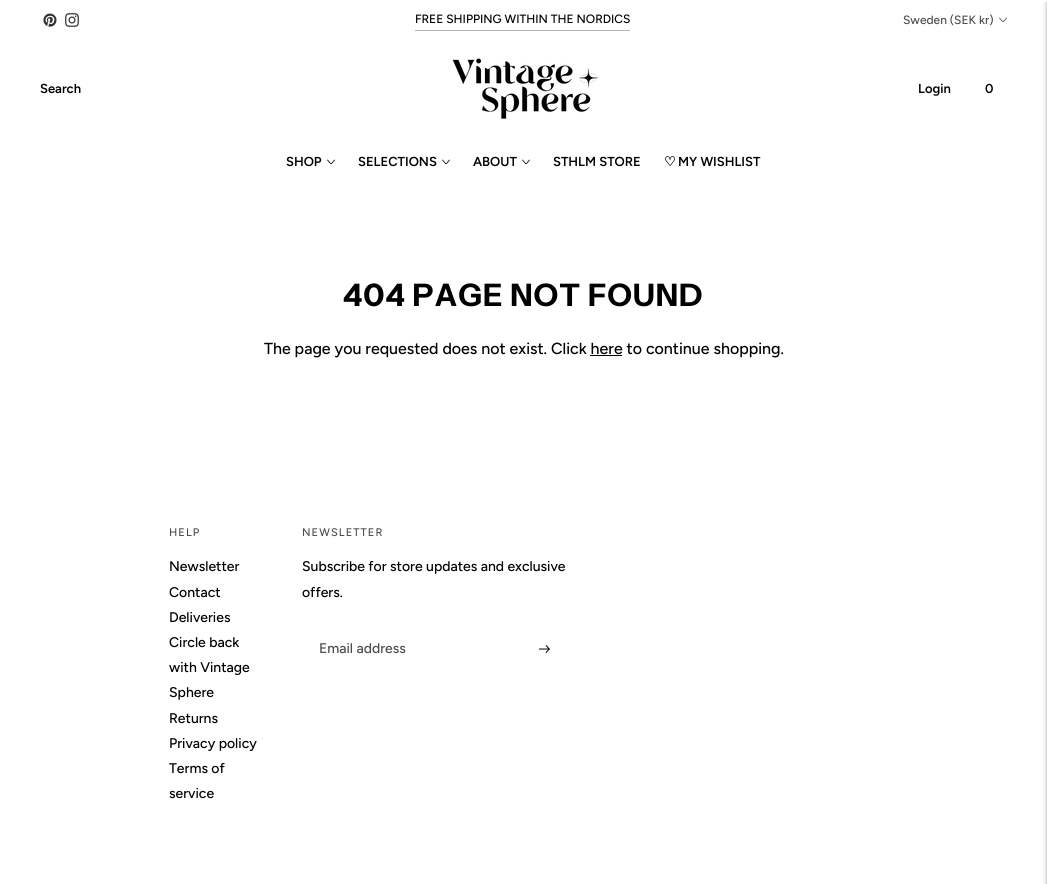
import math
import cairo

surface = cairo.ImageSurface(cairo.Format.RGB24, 1047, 884)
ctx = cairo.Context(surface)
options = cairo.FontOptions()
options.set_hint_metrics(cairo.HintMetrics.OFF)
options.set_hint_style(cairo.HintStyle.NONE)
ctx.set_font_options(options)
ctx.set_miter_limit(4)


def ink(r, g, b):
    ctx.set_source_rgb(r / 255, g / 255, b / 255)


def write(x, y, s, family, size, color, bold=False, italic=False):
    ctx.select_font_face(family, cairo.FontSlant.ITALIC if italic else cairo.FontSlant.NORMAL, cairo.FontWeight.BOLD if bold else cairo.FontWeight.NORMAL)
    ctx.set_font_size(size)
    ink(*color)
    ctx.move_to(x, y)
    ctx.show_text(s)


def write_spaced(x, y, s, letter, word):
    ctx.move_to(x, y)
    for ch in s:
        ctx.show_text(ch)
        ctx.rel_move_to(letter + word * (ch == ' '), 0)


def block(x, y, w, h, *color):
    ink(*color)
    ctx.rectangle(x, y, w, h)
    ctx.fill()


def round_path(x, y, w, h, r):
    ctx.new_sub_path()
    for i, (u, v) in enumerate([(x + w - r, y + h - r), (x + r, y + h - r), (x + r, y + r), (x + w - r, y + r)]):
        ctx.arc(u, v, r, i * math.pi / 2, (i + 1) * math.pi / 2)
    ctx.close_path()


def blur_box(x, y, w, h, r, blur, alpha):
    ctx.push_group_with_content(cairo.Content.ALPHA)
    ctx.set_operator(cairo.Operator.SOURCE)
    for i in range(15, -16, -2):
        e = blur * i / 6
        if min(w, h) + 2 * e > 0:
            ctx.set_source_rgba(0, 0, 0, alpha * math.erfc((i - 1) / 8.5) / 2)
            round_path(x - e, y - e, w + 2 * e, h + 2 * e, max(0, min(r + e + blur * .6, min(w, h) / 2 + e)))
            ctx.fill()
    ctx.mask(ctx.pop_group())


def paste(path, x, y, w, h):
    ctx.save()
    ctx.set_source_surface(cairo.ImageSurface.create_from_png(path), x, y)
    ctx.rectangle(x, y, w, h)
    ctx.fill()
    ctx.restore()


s1 = dict(family="Figtree Medium", size=12, color=(0, 0, 0))
s2 = dict(family="Figtree Medium", size=12, color=(77, 77, 77))
s3 = dict(family="Figtree SemiBold", size=13, color=(0, 0, 0))
s4 = dict(family="DejaVu Sans", size=13, color=(0, 0, 0), bold=True)
s5 = dict(family="Figtree Medium", size=16, color=(0, 0, 0))
s6 = dict(family="Figtree Medium", size=14, color=(0, 0, 0))
s7 = dict(family="Figtree Medium", size=14, color=(77, 77, 77))

ink(255, 255, 255)
ctx.paint()
ink(0, 0, 0)
blur_box(1047, 4, 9, 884, 0, 3, 0.1)
blur_box(1047, 2, 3, 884, 0, 1, 0.15)
paste("pic1.png", 43, 13, 14, 14)
paste("pic2.png", 65, 13, 14, 14)
write(415, 23, "FREE SHIPPING WITHIN THE NORDICS", **s1)
block(415, 30, 215, 1, 179, 179, 179)
write(903, 24, "Sweden (SEK kr)", **s2)
ctx.new_path()
ctx.move_to(999.5, 18)
ctx.curve_to(1004, 23, 1002, 23, 1006.5, 18)
ctx.set_line_width(0.8)
ctx.set_line_cap(cairo.LineCap.ROUND)
ctx.set_line_join(cairo.LineJoin.ROUND)
ctx.stroke()
write(40, 93, "Search", **s3)
paste("pic3.png", 452, 58, 147, 61)
write(918, 93, "Login", **s3)
write(985, 93, "0", **s3)
write(286, 166, "SHOP", **s3)
ctx.new_path()
ctx.move_to(327.5, 160)
ctx.curve_to(332, 165, 330, 165, 334.5, 160)
ctx.stroke()
write(358, 166, "SELECTIONS", **s3)
ctx.new_path()
ctx.move_to(442.5, 160)
ctx.curve_to(447, 165, 445, 165, 449.5, 160)
ctx.stroke()
write(473, 166, "ABOUT", **s3)
ctx.new_path()
ctx.move_to(522.5, 160)
ctx.curve_to(527, 165, 525, 165, 529.5, 160)
ctx.stroke()
write(553, 166, "STHLM STORE", **s3)
write(664, 166, "♡", **s4)
write(678, 166, "MY WISHLIST", **s3)
ink(0, 0, 0)
blur_box(1047, 4, 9, 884, 0, 3, 0.1)
blur_box(1047, 2, 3, 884, 0, 1, 0.15)
ctx.select_font_face("Instrument Sans", cairo.FontSlant.NORMAL, cairo.FontWeight.BOLD)
ctx.set_font_size(31)
ink(0, 0, 0)
write_spaced(343, 306, "404 PAGE NOT FOUND", 1, 0)
write(264, 354, "The page you requested does not exist. Click here to continue shopping.", **s5)
block(590, 355, 32, 1, 0, 0, 0)
ctx.set_font_size(11)
ink(77, 77, 77)
write_spaced(169, 536, "HELP", 1.1, 0)
write(169, 571, "Newsletter", **s6)
write(169, 597, "Contact", **s6)
write(169, 622, "Deliveries", **s6)
write(169, 647, "Circle back", **s6)
write(169, 672, "with Vintage", **s6)
write(169, 697, "Sphere", **s6)
write(169, 723, "Returns", **s6)
write(169, 748, "Privacy policy", **s6)
write(169, 773, "Terms of", **s6)
write(169, 798, "service", **s6)
ctx.set_font_size(11)
ink(77, 77, 77)
write_spaced(302, 536, "NEWSLETTER", 1.1, 0)
write(302, 571, "Subscribe for store updates and exclusive", **s6)
write(302, 597, "offers.", **s6)
write(319, 653, "Email address", **s7)
paste("pic4.png", 539, 645, 11, 8)
surface.write_to_png("screenshot.png")
